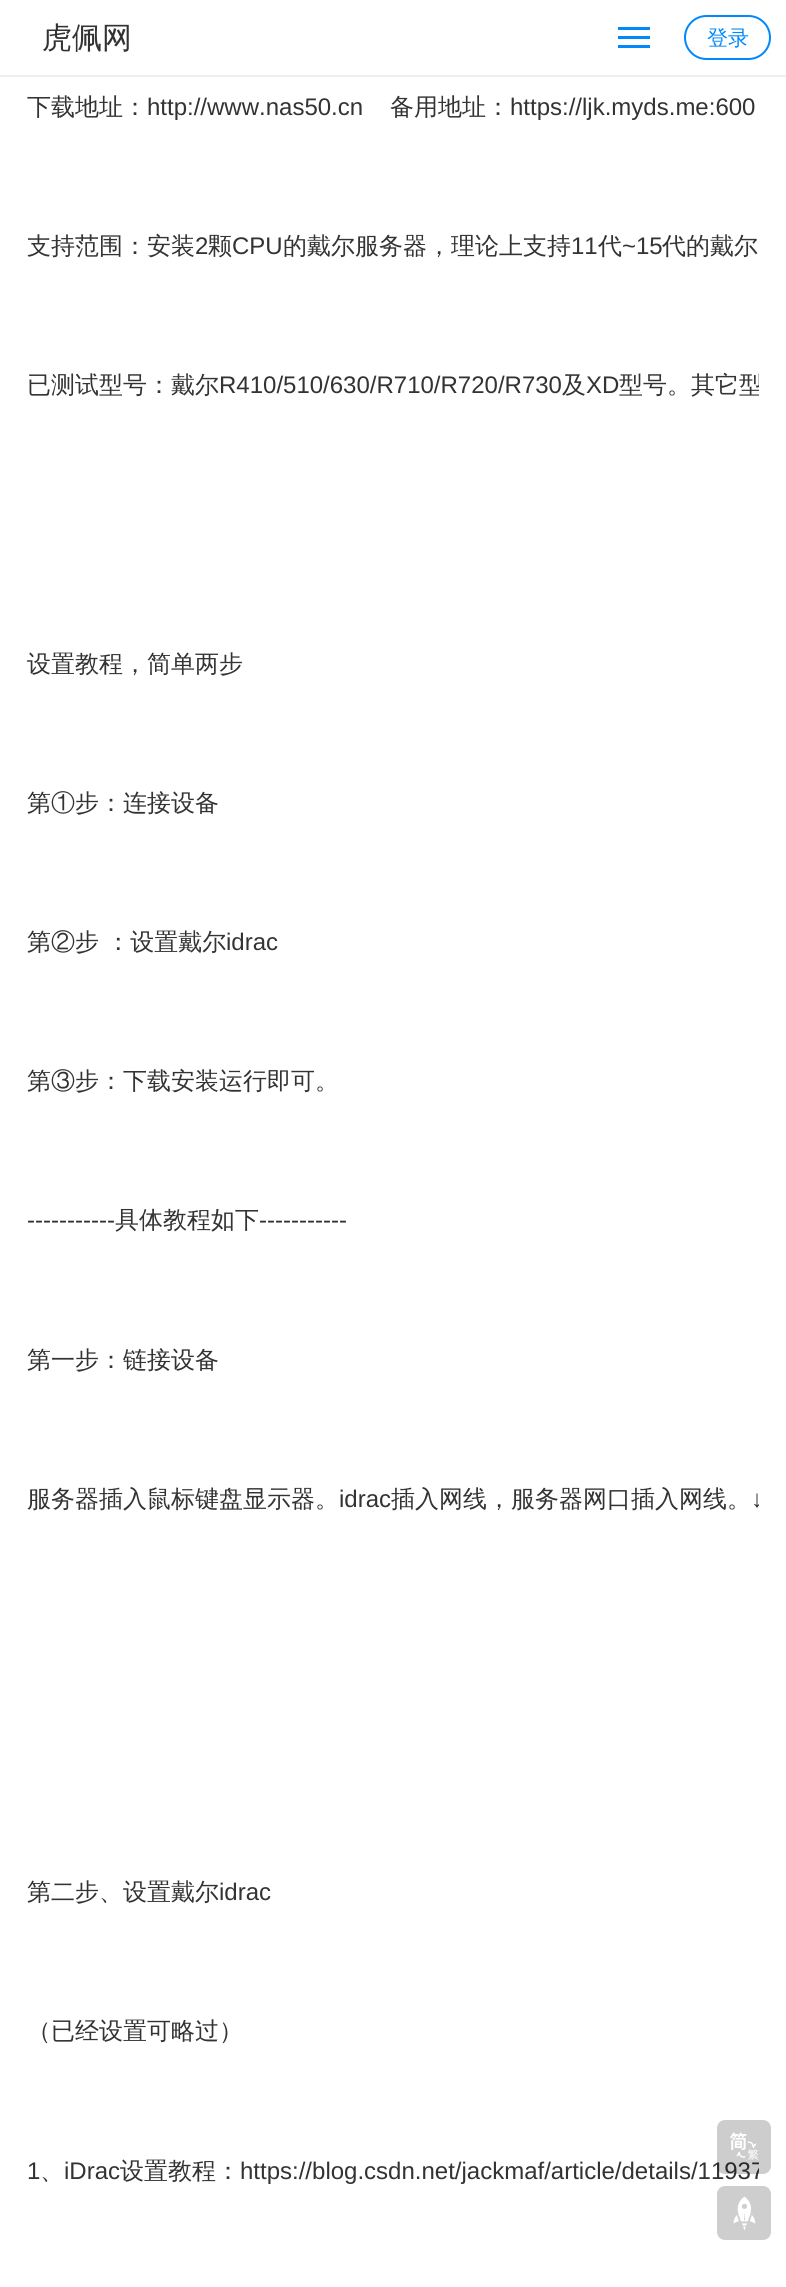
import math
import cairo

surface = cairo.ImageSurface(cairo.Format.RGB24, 786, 2287)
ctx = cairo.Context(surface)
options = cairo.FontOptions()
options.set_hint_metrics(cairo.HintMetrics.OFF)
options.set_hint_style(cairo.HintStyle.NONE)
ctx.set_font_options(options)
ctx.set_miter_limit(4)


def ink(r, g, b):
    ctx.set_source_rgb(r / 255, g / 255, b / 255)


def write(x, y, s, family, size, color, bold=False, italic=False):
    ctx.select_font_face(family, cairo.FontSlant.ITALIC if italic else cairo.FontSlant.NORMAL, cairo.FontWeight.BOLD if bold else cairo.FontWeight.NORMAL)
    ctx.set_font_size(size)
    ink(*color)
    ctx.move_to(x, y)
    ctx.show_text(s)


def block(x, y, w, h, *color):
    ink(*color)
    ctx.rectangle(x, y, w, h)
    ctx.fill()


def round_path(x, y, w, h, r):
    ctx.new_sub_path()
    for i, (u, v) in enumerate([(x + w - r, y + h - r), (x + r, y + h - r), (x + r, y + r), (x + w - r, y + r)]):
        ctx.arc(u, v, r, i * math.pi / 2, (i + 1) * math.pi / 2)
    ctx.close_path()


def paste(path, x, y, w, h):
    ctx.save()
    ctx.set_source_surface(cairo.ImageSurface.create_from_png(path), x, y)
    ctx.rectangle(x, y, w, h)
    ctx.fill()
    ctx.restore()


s1 = dict(family="WenQuanYi Zen Hei Medium", size=30, color=(51, 51, 51))
s2 = dict(family="WenQuanYi Zen Hei Medium", size=21, color=(1, 136, 251))
s3 = dict(family="WenQuanYi Zen Hei Medium", size=24, color=(51, 51, 51))
s4 = dict(family="Liberation Sans", size=24, color=(51, 51, 51))

ink(255, 255, 255)
ctx.paint()
block(0, 75, 786, 2, 238, 238, 238)
write(42, 48, "虎佩网", **s1)
block(618, 27, 32, 3, 1, 136, 251)
block(618, 36, 32, 3, 1, 136, 251)
block(618, 45, 32, 3, 1, 136, 251)
round_path(685, 16, 85, 43, 21.5)
ctx.stroke()
write(707, 45, "登录", **s2)
write(27, 115, "下载地址：", **s3)
write(147, 115, "http://www.nas50.cn", **s4)
write(390, 115, "备用地址：", **s3)
write(510, 115, "https://ljk.myds.me:600", **s4)
write(27, 254, "支持范围：安装", **s3)
write(195, 254, "2", **s4)
write(208, 254, "颗", **s3)
write(232, 254, "CPU", **s4)
write(283, 254, "的戴尔服务器，理论上支持", **s3)
write(571, 254, "11", **s4)
write(598, 254, "代", **s3)
write(622, 254, "~15", **s4)
write(662, 254, "代的戴尔", **s3)
write(27, 393, "已测试型号：戴尔", **s3)
write(219, 393, "R410/510/630/R710/R720/R730", **s4)
write(562, 393, "及", **s3)
write(586, 393, "XD", **s4)
ctx.save()
ctx.rectangle(27, 0, 732, 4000)
ctx.clip()
write(619, 393, "型号。其它型", **s3)
ctx.restore()
write(27, 672, "设置教程，简单两步", **s3)
write(27, 811, "第①步：连接设备", **s3)
write(27, 950, "第②步 ：设置戴尔", **s3)
write(226, 950, "idrac", **s4)
write(27, 1089, "第③步：下载安装运行即可。", **s3)
write(27, 1228, "-----------", **s4)
write(115, 1228, "具体教程如下", **s3)
write(259, 1228, "-----------", **s4)
write(27, 1368, "第一步：链接设备", **s3)
write(27, 1507, "服务器插入鼠标键盘显示器。", **s3)
write(339, 1507, "idrac", **s4)
write(391, 1507, "插入网线，服务器网口插入网线。", **s3)
ctx.save()
ctx.rectangle(27, 0, 732, 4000)
ctx.clip()
write(751, 1507, "↓", **s4)
ctx.restore()
write(27, 1900, "第二步、设置戴尔", **s3)
write(219, 1900, "idrac", **s4)
write(27, 2039, "（已经设置可略过）", **s3)
write(27, 2179, "1", **s4)
write(64, 2179, "iDrac", **s4)
write(120, 2179, "设置教程：", **s3)
ctx.save()
ctx.rectangle(27, 0, 732, 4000)
ctx.clip()
write(240, 2179, "https://blog.csdn.net/jackmaf/article/details/11937", **s4)
ctx.restore()
write(40, 2179, "、", **s3)
ctx.set_source_rgba(0.039, 0.039, 0.039, 0.2)
round_path(717, 2120, 54, 54, 8)
ctx.fill()
paste("pic1.png", 730, 2132, 29, 28)
ink(206, 206, 206)
round_path(717, 2186, 54, 54, 8)
ctx.fill()
paste("pic2.png", 733, 2196, 23, 35)
surface.write_to_png("screenshot.png")
